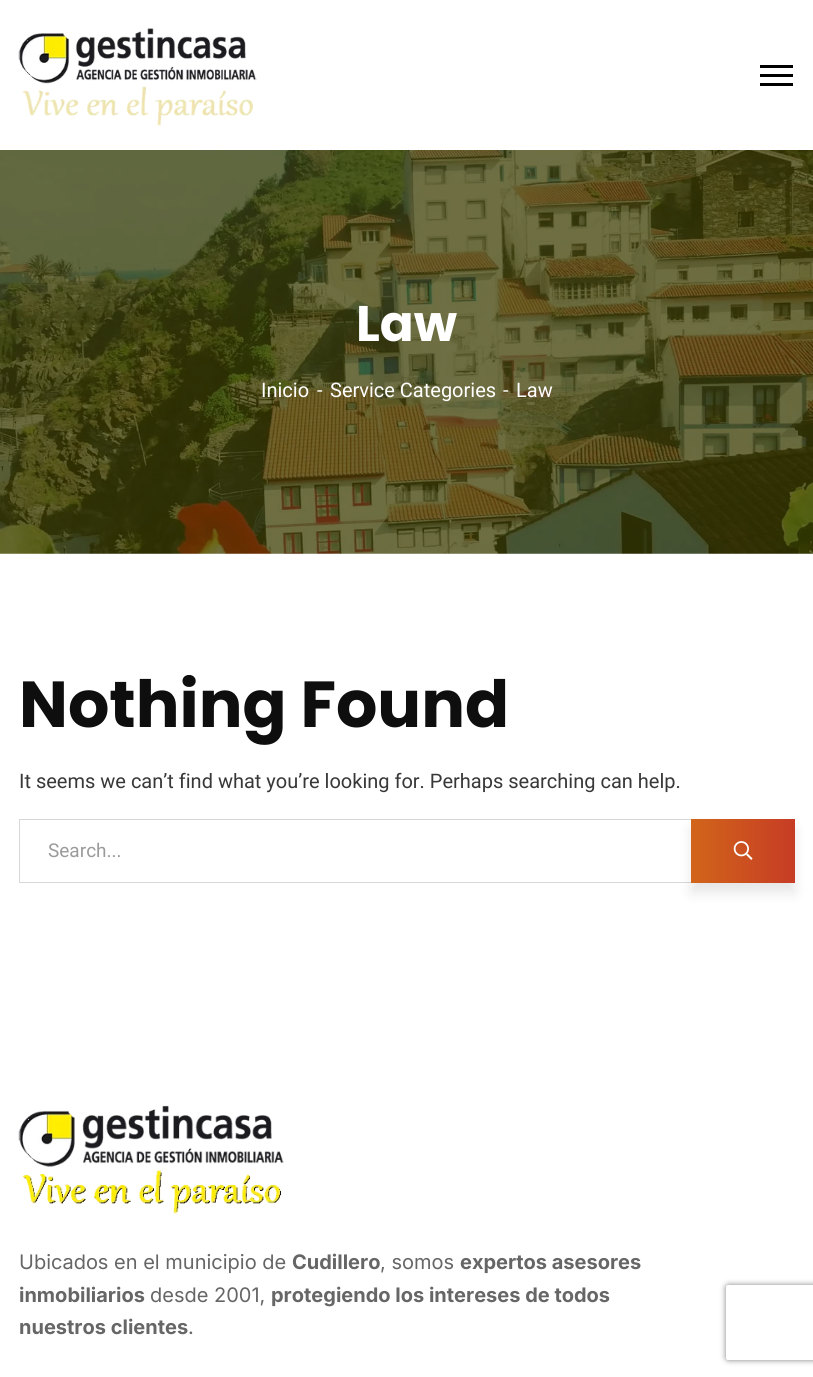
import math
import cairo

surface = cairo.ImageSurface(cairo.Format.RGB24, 813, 1377)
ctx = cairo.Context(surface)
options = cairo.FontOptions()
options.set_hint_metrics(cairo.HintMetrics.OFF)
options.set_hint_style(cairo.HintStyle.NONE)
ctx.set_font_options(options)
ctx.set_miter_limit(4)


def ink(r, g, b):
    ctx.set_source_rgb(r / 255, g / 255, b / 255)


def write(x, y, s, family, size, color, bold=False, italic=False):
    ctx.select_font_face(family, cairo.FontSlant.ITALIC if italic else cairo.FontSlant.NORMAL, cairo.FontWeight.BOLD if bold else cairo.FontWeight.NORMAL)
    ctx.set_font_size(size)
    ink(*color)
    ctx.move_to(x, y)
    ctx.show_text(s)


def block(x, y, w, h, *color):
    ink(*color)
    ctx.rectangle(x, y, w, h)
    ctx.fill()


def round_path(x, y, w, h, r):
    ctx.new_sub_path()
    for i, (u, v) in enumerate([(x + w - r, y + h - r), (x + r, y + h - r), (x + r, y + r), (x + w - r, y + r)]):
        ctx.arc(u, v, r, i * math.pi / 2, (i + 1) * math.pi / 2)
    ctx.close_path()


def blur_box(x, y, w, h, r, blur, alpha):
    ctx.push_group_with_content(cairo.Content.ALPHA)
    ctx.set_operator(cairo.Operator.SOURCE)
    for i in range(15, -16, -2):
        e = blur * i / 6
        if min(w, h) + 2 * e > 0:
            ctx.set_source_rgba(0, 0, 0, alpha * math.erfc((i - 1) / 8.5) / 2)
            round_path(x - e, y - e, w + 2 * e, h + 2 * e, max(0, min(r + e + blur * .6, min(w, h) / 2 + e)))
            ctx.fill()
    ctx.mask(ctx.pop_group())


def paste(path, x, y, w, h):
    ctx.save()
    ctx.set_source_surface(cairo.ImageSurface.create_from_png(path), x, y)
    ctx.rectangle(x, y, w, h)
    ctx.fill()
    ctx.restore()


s1 = dict(family="Poppins", size=50, color=(255, 255, 255), bold=True)
s2 = dict(family="Roboto", size=20, color=(255, 255, 255))
s3 = dict(family="Poppins", size=65, color=(14, 14, 14), bold=True)
s4 = dict(family="Roboto", size=20, color=(56, 56, 56))
s5 = dict(family="Roboto", size=19, color=(155, 155, 155))
s6 = dict(family="Inter", size=20, color=(102, 102, 102))
s7 = dict(family="Inter", size=20, color=(102, 102, 102), bold=True)

ink(255, 255, 255)
ctx.paint()
paste("pic1.png", 18, 28, 239, 98)
block(760, 65, 33, 3, 0, 0, 0)
block(760, 74, 33, 3, 0, 0, 0)
block(760, 83, 33, 3, 0, 0, 0)
paste("pic2.png", 0, 150, 813, 404)
write(356, 341, "Law", **s1)
write(261, 397, "Inicio", **s2)
write(317, 397, "-", **s2)
write(330, 397, "Service Categories", **s2)
write(503, 397, "-", **s2)
write(516, 397, "Law", **s2)
write(19, 727, "Nothing Found", **s3)
write(19, 788, "It seems we can’t find what you’re looking for. Perhaps searching can help.", **s4)
ctx.rectangle(19.5, 819.5, 775, 63)
ink(216, 216, 216)
ctx.set_line_width(1)
ctx.stroke()
write(48, 857, "Search...", **s5)
ink(12, 12, 12)
blur_box(691, 829, 104, 64, 0, 6, 0.1)
gradient = cairo.LinearGradient(691, 851, 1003, 851)
gradient.add_color_stop_rgba(0, 0.82, 0.396, 0.102, 1)
gradient.add_color_stop_rgba(0.5, 0.757, 0.157, 0.165, 1)
gradient.add_color_stop_rgba(1, 0.82, 0.396, 0.102, 1)
ctx.set_source(gradient)
ctx.rectangle(691, 819, 104, 64)
ctx.fill()
paste("pic3.png", 733, 841, 20, 19)
paste("pic4.png", 18, 1105, 266, 109)
write(19, 1269, "Ubicados en el municipio de", **s6)
write(292, 1269, "Cudillero", **s7)
write(380, 1269, ", somos", **s6)
write(460, 1269, "expertos asesores", **s7)
write(19, 1302, "inmobiliarios", **s7)
write(150, 1302, "desde 2001,", **s6)
write(271, 1302, "protegiendo los intereses de todos", **s7)
write(19, 1334, "nuestros clientes", **s7)
write(188, 1334, ".", **s6)
ctx.save()
ctx.set_fill_rule(cairo.FillRule.EVEN_ODD)
ctx.new_path()
ctx.move_to(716, 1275)
ctx.line_to(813, 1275)
ctx.line_to(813, 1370)
ctx.line_to(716, 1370)
ctx.close_path()
ctx.move_to(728.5, 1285)
ctx.line_to(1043.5, 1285)
ctx.curve_to(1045, 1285, 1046, 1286, 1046, 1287.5)
ctx.line_to(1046, 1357.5)
ctx.curve_to(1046, 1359, 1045, 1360, 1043.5, 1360)
ctx.line_to(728.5, 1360)
ctx.curve_to(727, 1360, 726, 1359, 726, 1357.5)
ctx.line_to(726, 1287.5)
ctx.curve_to(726, 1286, 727, 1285, 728.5, 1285)
ctx.close_path()
ctx.clip()
ink(128, 128, 128)
blur_box(726, 1285, 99, 75, 2.5, 3, 1)
ctx.restore()
surface.write_to_png("screenshot.png")
